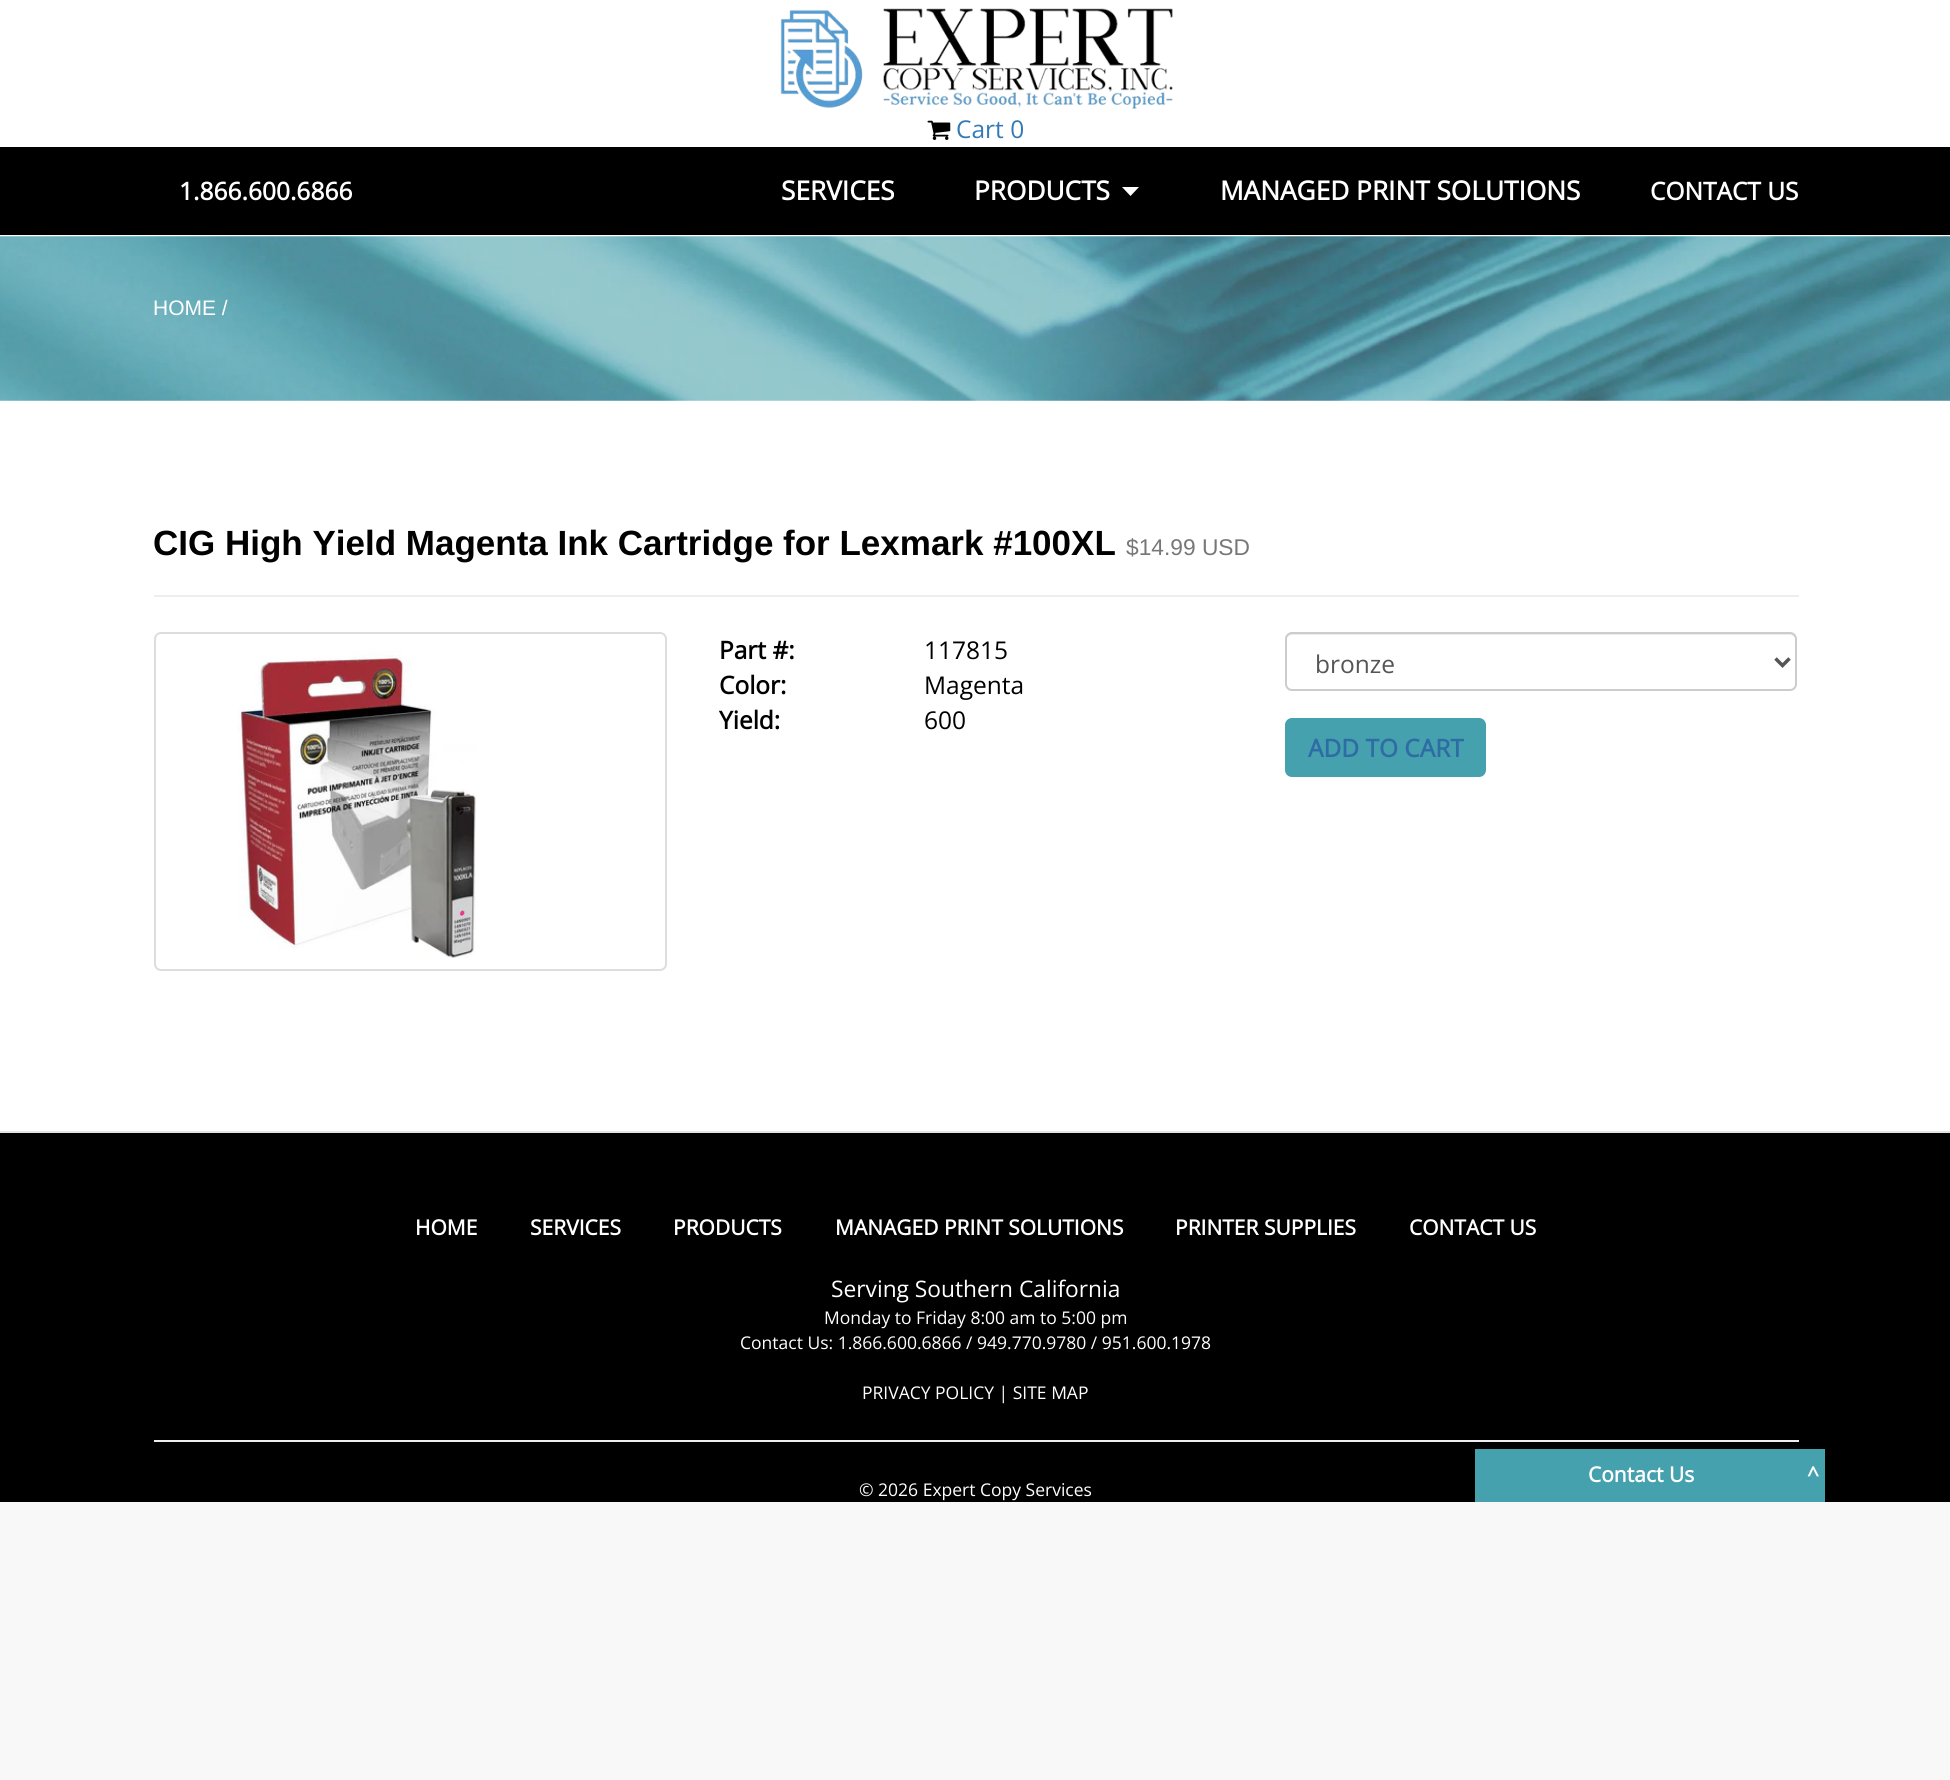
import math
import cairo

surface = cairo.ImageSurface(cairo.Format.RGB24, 1950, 1780)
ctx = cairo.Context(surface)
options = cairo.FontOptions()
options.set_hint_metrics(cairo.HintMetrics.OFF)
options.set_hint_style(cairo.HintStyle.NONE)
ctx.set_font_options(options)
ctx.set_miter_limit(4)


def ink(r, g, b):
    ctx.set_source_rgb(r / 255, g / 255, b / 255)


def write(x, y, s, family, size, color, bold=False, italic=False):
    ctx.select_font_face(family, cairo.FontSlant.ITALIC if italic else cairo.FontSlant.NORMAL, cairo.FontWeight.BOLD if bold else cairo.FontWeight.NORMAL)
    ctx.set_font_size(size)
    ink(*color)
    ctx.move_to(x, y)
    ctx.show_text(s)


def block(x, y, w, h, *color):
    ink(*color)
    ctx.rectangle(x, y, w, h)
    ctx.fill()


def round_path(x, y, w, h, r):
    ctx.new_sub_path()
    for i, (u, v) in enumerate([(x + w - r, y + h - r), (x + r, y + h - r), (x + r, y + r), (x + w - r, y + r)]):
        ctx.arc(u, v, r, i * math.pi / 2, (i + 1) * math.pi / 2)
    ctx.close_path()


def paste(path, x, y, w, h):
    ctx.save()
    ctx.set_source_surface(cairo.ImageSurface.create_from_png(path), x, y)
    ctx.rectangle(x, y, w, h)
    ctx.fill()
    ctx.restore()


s1 = dict(family="Open Sans", size=24.5, color=(51, 122, 183))
s2 = dict(family="Open Sans", size=24.5, color=(255, 255, 255), bold=True)
s3 = dict(family="Open Sans", size=26.25, color=(255, 255, 255), bold=True)
s4 = dict(family="Liberation Sans", size=21, color=(255, 255, 255))
s5 = dict(family="Liberation Sans", size=35, color=(0, 0, 0), bold=True)
s6 = dict(family="Liberation Sans", size=22.75, color=(119, 119, 119))
s7 = dict(family="Open Sans", size=24.5, color=(0, 0, 0), bold=True)
s8 = dict(family="Open Sans", size=24.5, color=(0, 0, 0))
s9 = dict(family="Open Sans", size=24.5, color=(85, 85, 85))
s10 = dict(family="Open Sans", size=24.5, color=(46, 109, 164), bold=True)
s11 = dict(family="Open Sans", size=21, color=(255, 255, 255), bold=True)
s12 = dict(family="Open Sans", size=22.75, color=(255, 255, 255))
s13 = dict(family="Open Sans", size=17.5, color=(255, 255, 255))

ink(248, 248, 248)
ctx.paint()
block(0, 0, 1950, 1131, 255, 255, 255)
paste("pic1.png", 780, 8, 393, 101)
paste("pic2.png", 927, 120, 24, 20)
write(956, 138, "Cart 0", **s1)
block(0, 147, 1950, 88, 0, 0, 0)
write(179, 200, "1.866.600.6866", **s2)
write(781, 200, "SERVICES", **s3)
write(974, 200, "PRODUCTS", **s3)
ctx.new_path()
ctx.move_to(1122, 187)
ctx.line_to(1139, 187)
ctx.line_to(1130.5, 196)
ctx.close_path()
ctx.fill()
write(1220, 200, "MANAGED PRINT SOLUTIONS", **s3)
write(1650, 200, "CONTACT US", **s2)
paste("pic3.png", 0, 236, 1950, 165)
write(153, 315, "HOME /", **s4)
block(154, 595, 1645, 2, 238, 238, 238)
write(153, 555, "CIG High Yield Magenta Ink Cartridge for Lexmark #100XL", **s5)
write(1126, 555, "$14.99 USD", **s6)
round_path(155, 633, 511, 337, 6)
ink(221, 221, 221)
ctx.stroke()
paste("pic4.png", 238, 650, 238, 308)
write(719, 659, "Part #:", **s7)
write(924, 659, "117815", **s8)
write(719, 694, "Color:", **s7)
write(924, 694, "Magenta", **s8)
write(719, 729, "Yield:", **s7)
write(924, 729, "600", **s8)
ink(236, 236, 236)
ctx.new_path()
ctx.move_to(1292, 635)
ctx.line_to(1790, 635)
ctx.curve_to(1793, 635, 1796, 638, 1796, 640)
ctx.line_to(1796, 639)
ctx.curve_to(1796, 636, 1794, 634, 1791, 634)
ctx.line_to(1291, 634)
ctx.curve_to(1288, 634, 1286, 636, 1286, 639)
ctx.line_to(1286, 640)
ctx.curve_to(1286, 638, 1289, 635, 1292, 635)
ctx.close_path()
ctx.fill()
round_path(1286, 633, 510, 57, 6)
ink(204, 204, 204)
ctx.stroke()
ctx.new_path()
ctx.move_to(1775.5, 658.5)
ctx.line_to(1782.5, 665.5)
ctx.line_to(1789.5, 658.5)
ink(85, 85, 85)
ctx.set_line_width(3.5)
ctx.stroke()
write(1315, 673, "bronze", **s9)
ink(69, 161, 174)
round_path(1285, 718, 201, 59, 7)
ctx.fill()
write(1308, 757, "ADD TO CART", **s10)
block(0, 1133, 1950, 369, 0, 0, 0)
block(0, 1131, 1950, 2, 229, 229, 229)
write(415, 1235, "HOME", **s11)
write(530, 1235, "SERVICES", **s11)
write(673, 1235, "PRODUCTS", **s11)
write(835, 1235, "MANAGED PRINT SOLUTIONS", **s11)
write(1175, 1235, "PRINTER SUPPLIES", **s11)
write(1409, 1235, "CONTACT US", **s11)
write(831, 1297, "Serving Southern California", **s12)
write(824, 1324, "Monday to Friday 8:00 am to 5:00 pm", **s13)
write(740, 1349, "Contact Us: 1.866.600.6866 / 949.770.9780 / 951.600.1978", **s13)
write(862, 1399, "PRIVACY POLICY | SITE MAP", **s13)
block(154, 1440, 1645, 2, 238, 238, 238)
block(1475, 1449, 350, 53, 69, 161, 174)
write(1588, 1482, "Contact Us", **s11)
write(1807, 1482, "^", **s11)
write(859, 1496, "© 2026 Expert Copy Services", **s13)
surface.write_to_png("screenshot.png")
